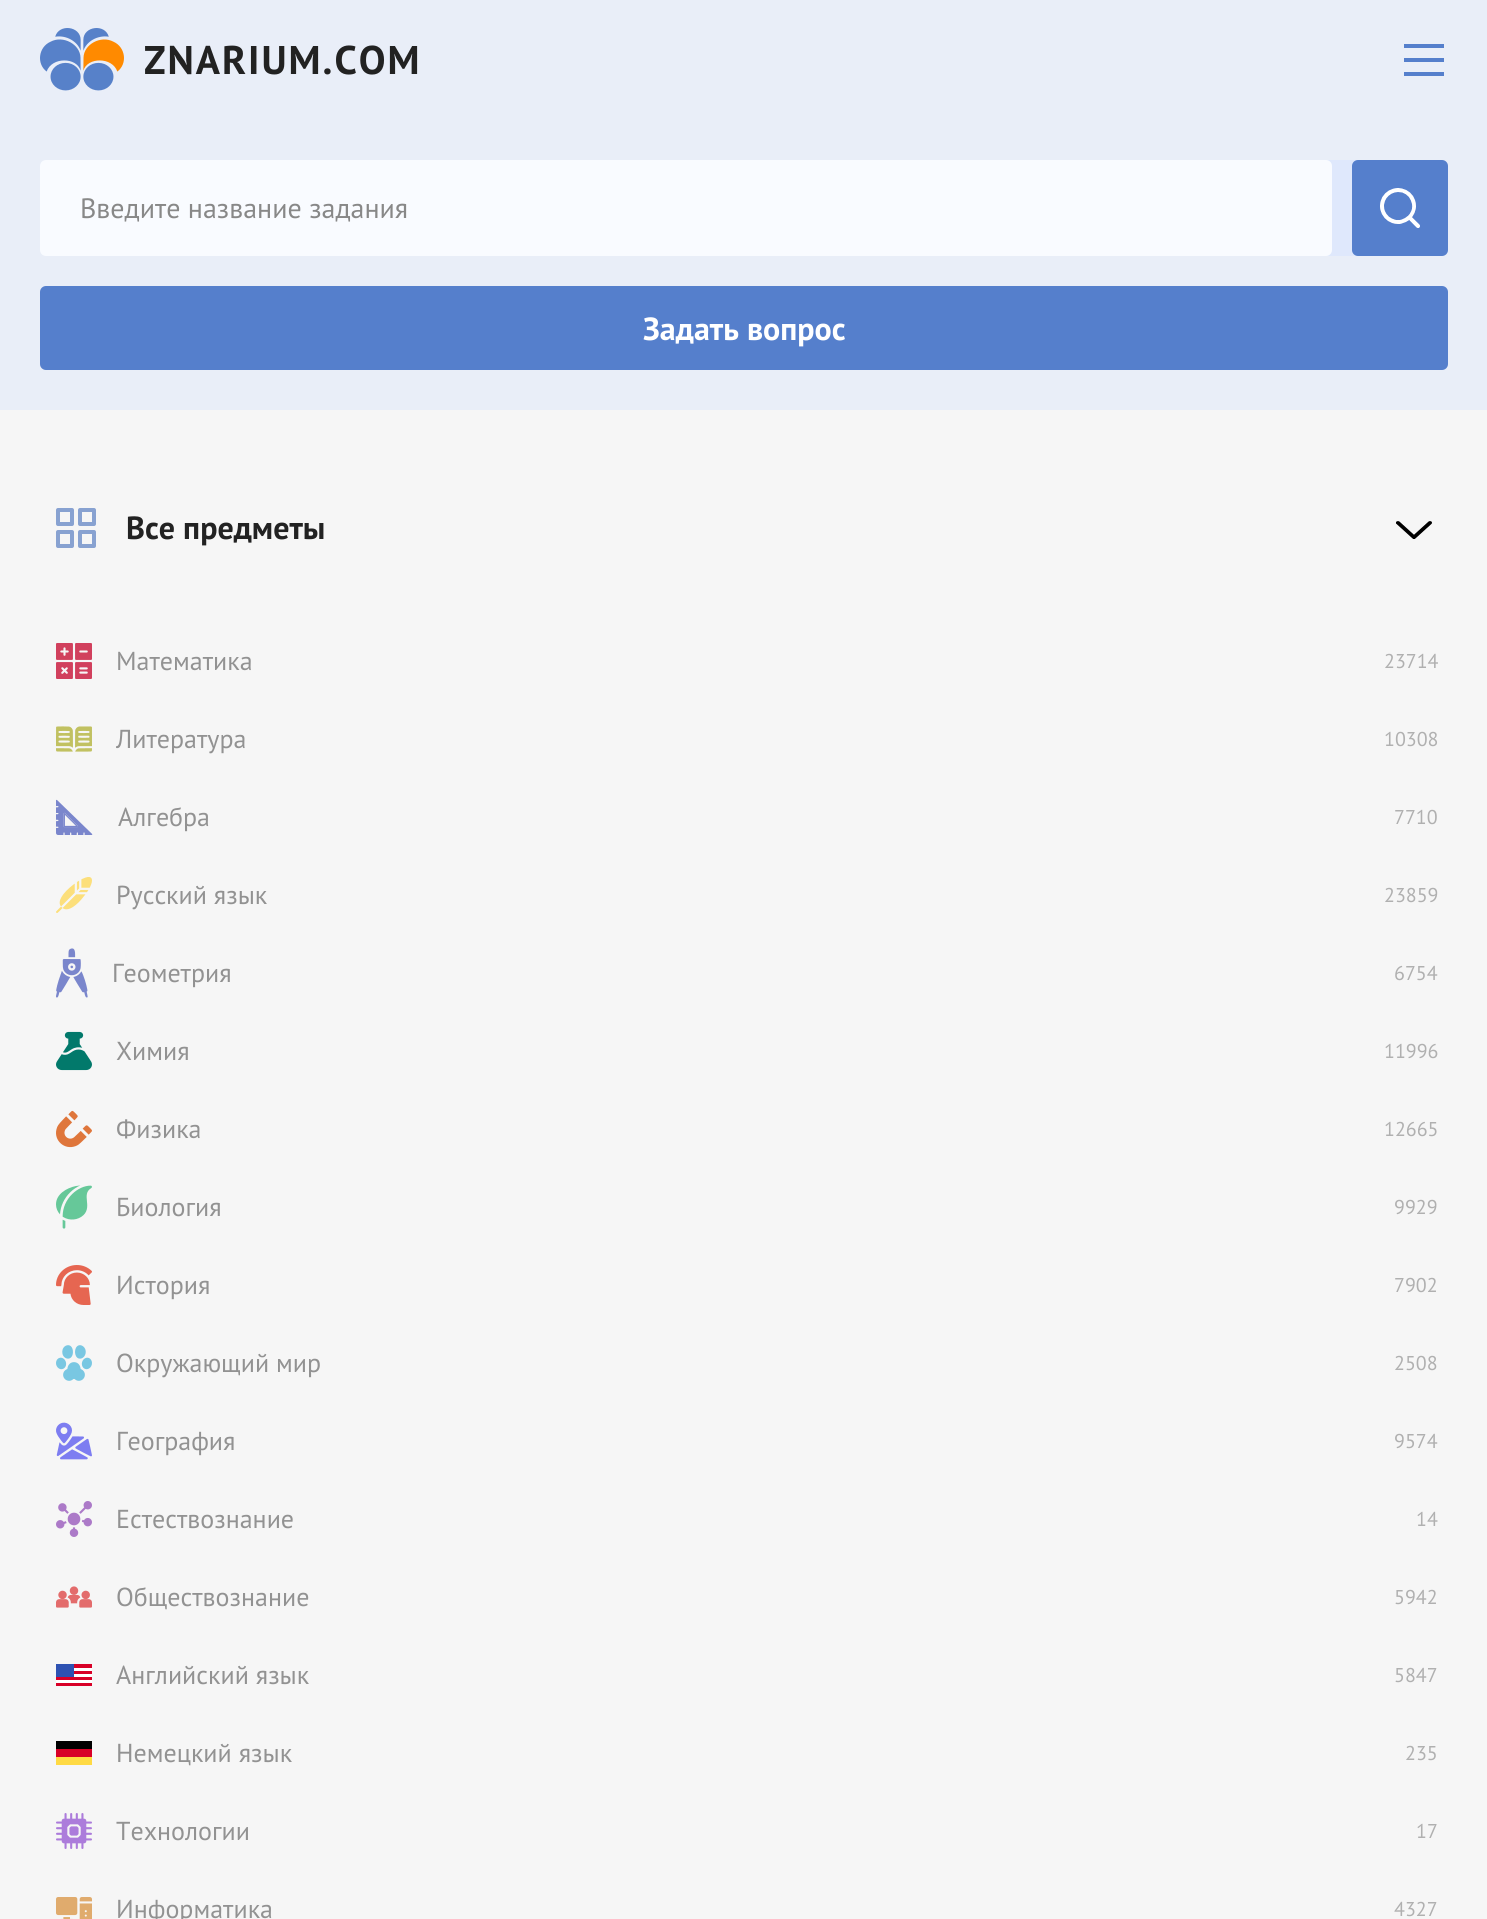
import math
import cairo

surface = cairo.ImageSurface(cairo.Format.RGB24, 1487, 1919)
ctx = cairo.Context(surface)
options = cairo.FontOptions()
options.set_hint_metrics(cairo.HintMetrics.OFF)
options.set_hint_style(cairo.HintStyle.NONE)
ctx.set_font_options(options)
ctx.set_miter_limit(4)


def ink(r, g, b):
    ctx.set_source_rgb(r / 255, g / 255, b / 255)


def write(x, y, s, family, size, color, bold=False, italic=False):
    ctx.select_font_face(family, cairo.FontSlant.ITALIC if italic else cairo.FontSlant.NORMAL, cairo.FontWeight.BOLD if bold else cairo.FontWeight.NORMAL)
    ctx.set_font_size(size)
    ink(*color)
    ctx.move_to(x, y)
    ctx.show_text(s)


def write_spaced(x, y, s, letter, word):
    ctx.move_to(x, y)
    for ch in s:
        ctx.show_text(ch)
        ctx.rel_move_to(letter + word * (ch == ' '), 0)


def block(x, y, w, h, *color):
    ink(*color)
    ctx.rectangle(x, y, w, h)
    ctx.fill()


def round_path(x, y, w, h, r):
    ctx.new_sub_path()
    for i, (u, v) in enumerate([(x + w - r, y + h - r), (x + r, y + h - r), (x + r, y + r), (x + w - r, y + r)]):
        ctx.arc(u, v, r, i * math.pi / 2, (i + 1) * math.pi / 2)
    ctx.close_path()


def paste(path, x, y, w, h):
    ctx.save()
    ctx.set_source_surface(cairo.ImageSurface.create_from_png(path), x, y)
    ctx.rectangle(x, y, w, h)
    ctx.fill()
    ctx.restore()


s1 = dict(family="PT Sans", size=28, color=(136, 136, 136))
s2 = dict(family="PT Sans", size=32, color=(255, 255, 255), bold=True)
s3 = dict(family="PT Sans", size=32, color=(34, 34, 34), bold=True)
s4 = dict(family="PT Sans", size=26, color=(146, 146, 146))
s5 = dict(family="PT Sans", size=20, color=(176, 176, 176))

ink(246, 246, 246)
ctx.paint()
block(0, 0, 1487, 410, 233, 238, 248)
paste("pic1.png", 40, 28, 84, 63)
ctx.select_font_face("PT Sans", cairo.FontSlant.NORMAL, cairo.FontWeight.BOLD)
ctx.set_font_size(40)
ink(34, 34, 34)
write_spaced(144, 74, "ZNARIUM.COM", 2, 0)
block(1404, 58, 40, 4, 85, 127, 204)
block(1404, 44, 40, 4, 85, 127, 204)
block(1404, 72, 40, 4, 85, 127, 204)
ink(223, 232, 252)
round_path(40, 160, 1408, 96, 10)
ctx.fill()
ink(249, 251, 255)
round_path(40, 160, 1292, 96, 6)
ctx.fill()
write(80, 218, "Введите название задания", **s1)
ink(85, 127, 204)
round_path(1352, 160, 96, 96, 6)
ctx.fill()
paste("pic2.png", 1380, 188, 40, 40)
round_path(40, 286, 1408, 84, 6)
ctx.fill()
write(643, 340, "Задать вопрос", **s2)
ctx.new_path()
ctx.move_to(72, 510)
ctx.line_to(58, 510)
ctx.line_to(58, 524)
ctx.line_to(72, 524)
ctx.close_path()
ctx.move_to(94, 510)
ctx.line_to(80, 510)
ctx.line_to(80, 524)
ctx.line_to(94, 524)
ctx.close_path()
ctx.move_to(94, 532)
ctx.line_to(80, 532)
ctx.line_to(80, 546)
ctx.line_to(94, 546)
ctx.close_path()
ctx.move_to(72, 532)
ctx.line_to(58, 532)
ctx.line_to(58, 546)
ctx.line_to(72, 546)
ctx.close_path()
ink(136, 162, 209)
ctx.set_line_width(4)
ctx.set_line_cap(cairo.LineCap.ROUND)
ctx.set_line_join(cairo.LineJoin.ROUND)
ctx.stroke()
write(126, 539, "Все предметы", **s3)
paste("pic3.png", 1396, 521, 36, 18)
paste("pic4.png", 56, 643, 36, 36)
write(116, 670, "Математика", **s4)
write(1384, 668, "23714", **s5)
paste("pic5.png", 56, 726, 36, 26)
write(116, 748, "Литература", **s4)
write(1384, 746, "10308", **s5)
paste("pic6.png", 56, 799, 37, 36)
write(118, 826, "Алгебра", **s4)
write(1394, 824, "7710", **s5)
paste("pic7.png", 56, 877, 36, 36)
write(116, 904, "Русский язык", **s4)
write(1384, 902, "23859", **s5)
paste("pic8.png", 56, 948, 32, 50)
write(112, 982, "Геометрия", **s4)
write(1394, 980, "6754", **s5)
paste("pic9.png", 56, 1031, 36, 40)
write(116, 1060, "Химия", **s4)
write(1384, 1058, "11996", **s5)
paste("pic10.png", 56, 1110, 36, 38)
write(116, 1138, "Физика", **s4)
write(1384, 1136, "12665", **s5)
paste("pic11.png", 56, 1185, 36, 44)
write(116, 1216, "Биология", **s4)
write(1394, 1214, "9929", **s5)
paste("pic12.png", 56, 1265, 36, 40)
write(116, 1294, "История", **s4)
write(1394, 1292, "7902", **s5)
paste("pic13.png", 56, 1345, 36, 36)
write(116, 1372, "Окружающий мир", **s4)
write(1394, 1370, "2508", **s5)
paste("pic14.png", 56, 1422, 36, 38)
write(116, 1450, "География", **s4)
write(1394, 1448, "9574", **s5)
paste("pic15.png", 56, 1501, 36, 36)
write(116, 1528, "Естествознание", **s4)
write(1416, 1526, "14", **s5)
paste("pic16.png", 56, 1586, 36, 22)
write(116, 1606, "Обществознание", **s4)
write(1394, 1604, "5942", **s5)
paste("pic17.png", 56, 1664, 36, 22)
write(116, 1684, "Английский язык", **s4)
write(1394, 1682, "5847", **s5)
block(56, 1741, 36, 8, 0, 0, 0)
block(56, 1749, 36, 8, 216, 0, 39)
block(56, 1757, 36, 8, 255, 218, 68)
write(116, 1762, "Немецкий язык", **s4)
write(1405, 1760, "235", **s5)
paste("pic18.png", 56, 1813, 36, 36)
write(116, 1840, "Технологии", **s4)
write(1416, 1838, "17", **s5)
paste("pic19.png", 56, 1897, 36, 22)
write(116, 1918, "Информатика", **s4)
write(1394, 1916, "4327", **s5)
surface.write_to_png("screenshot.png")
